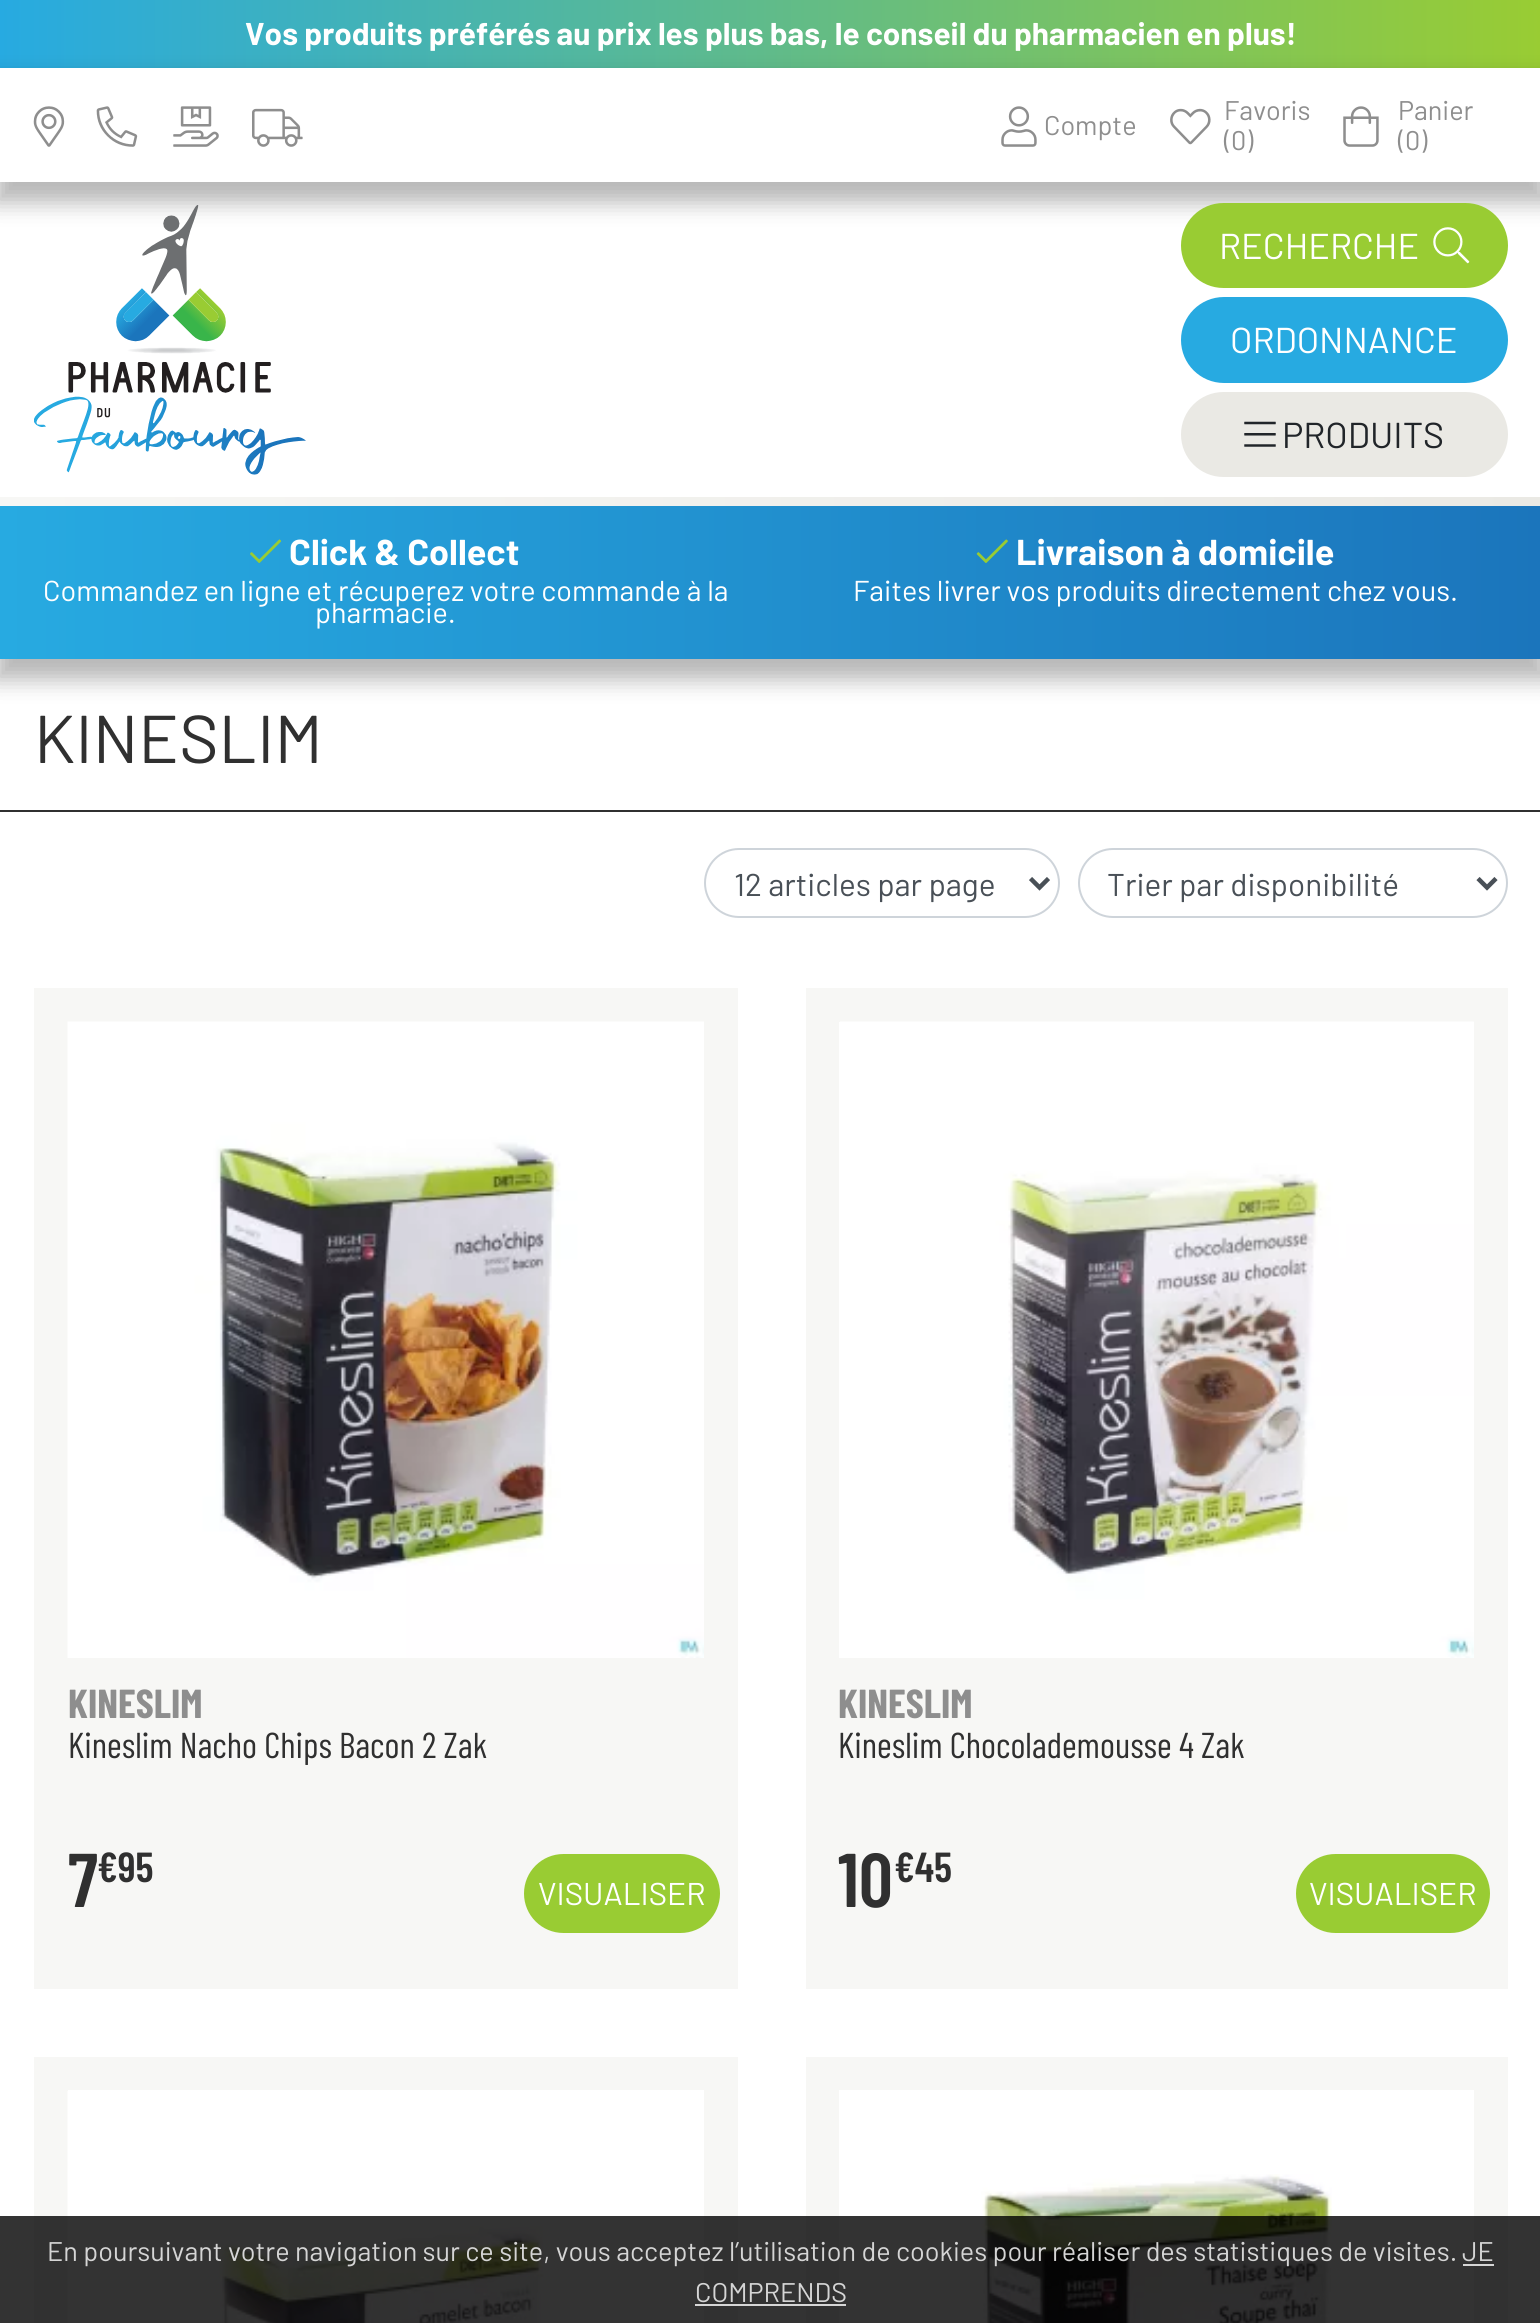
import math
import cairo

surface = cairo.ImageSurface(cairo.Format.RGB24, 1540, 2323)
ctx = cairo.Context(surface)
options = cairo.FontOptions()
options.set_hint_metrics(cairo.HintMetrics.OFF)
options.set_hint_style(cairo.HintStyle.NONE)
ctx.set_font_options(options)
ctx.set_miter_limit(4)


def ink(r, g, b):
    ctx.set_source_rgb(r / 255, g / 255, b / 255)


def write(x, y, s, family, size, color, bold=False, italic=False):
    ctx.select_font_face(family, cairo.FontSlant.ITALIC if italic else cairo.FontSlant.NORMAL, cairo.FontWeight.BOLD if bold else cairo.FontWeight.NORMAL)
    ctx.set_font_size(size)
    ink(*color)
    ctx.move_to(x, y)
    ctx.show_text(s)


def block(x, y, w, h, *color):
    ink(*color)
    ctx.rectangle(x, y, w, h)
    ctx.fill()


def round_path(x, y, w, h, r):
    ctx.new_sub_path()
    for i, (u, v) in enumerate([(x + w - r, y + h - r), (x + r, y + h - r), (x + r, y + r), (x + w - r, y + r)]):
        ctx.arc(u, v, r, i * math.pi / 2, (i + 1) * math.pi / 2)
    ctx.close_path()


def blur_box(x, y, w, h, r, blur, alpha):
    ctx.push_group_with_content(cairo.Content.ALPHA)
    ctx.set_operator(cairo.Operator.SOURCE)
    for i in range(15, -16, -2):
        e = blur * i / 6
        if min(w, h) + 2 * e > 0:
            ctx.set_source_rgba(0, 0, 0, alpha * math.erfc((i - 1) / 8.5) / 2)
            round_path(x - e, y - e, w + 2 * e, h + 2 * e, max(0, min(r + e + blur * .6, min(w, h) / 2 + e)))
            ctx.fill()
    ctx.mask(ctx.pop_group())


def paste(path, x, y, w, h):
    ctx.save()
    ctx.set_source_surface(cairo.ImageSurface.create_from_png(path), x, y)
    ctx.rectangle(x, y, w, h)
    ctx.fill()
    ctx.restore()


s1 = dict(family="Barlow", size=31.5, color=(255, 255, 255), bold=True)
s2 = dict(family="Barlow", size=27, color=(142, 142, 142))
s3 = dict(family="Barlow", size=36, color=(255, 255, 255))
s4 = dict(family="Barlow", size=36, color=(33, 37, 41))
s5 = dict(family="Barlow", size=36, color=(255, 255, 255), bold=True)
s6 = dict(family="Barlow", size=28.8, color=(255, 255, 255))
s7 = dict(family="Barlow", size=67.5, color=(48, 48, 48))
s8 = dict(family="Barlow", size=31.5, color=(73, 80, 87))
s9 = dict(family="Barlow Condensed", size=40.5, color=(142, 142, 142), bold=True)
s10 = dict(family="Barlow Condensed", size=36, color=(48, 48, 48))
s11 = dict(family="Barlow Condensed SemiBold", size=76, color=(48, 48, 48))
s12 = dict(family="Barlow Condensed SemiBold", size=42, color=(48, 48, 48))
s13 = dict(family="Barlow", size=31.5, color=(255, 255, 255))
s14 = dict(family="Barlow", size=27, color=(213, 213, 213))

ink(255, 255, 255)
ctx.paint()
ink(0, 0, 0)
blur_box(-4, 11, 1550, 669, 0, 11, 0.28)
gradient = cairo.LinearGradient(0, 330, 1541, 330)
gradient.add_color_stop_rgba(0, 0.969, 0.969, 0.961, 1)
gradient.add_color_stop_rgba(1, 0.918, 0.914, 0.894, 1)
ctx.set_source(gradient)
ctx.rectangle(0, 497, 1540, 9)
ctx.fill()
gradient = cairo.LinearGradient(0, 34, 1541, 34)
gradient.add_color_stop_rgba(0, 0.153, 0.667, 0.882, 1)
gradient.add_color_stop_rgba(1, 0.6, 0.8, 0.2, 1)
ctx.set_source(gradient)
ctx.rectangle(0, 0, 1540, 68)
ctx.fill()
write(245, 45, "Vos produits préférés au prix les plus bas, le conseil du pharmacien en plus!", **s1)
block(0, 182, 1540, 315, 255, 255, 255)
ink(0, 0, 0)
blur_box(-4, 79, 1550, 124, 0, 11, 0.28)
block(0, 68, 1540, 114, 255, 255, 255)
paste("pic1.png", 33, 106, 32, 41)
paste("pic2.png", 96, 106, 42, 41)
paste("pic3.png", 173, 106, 46, 41)
paste("pic4.png", 252, 108, 51, 39)
paste("pic5.png", 1001, 106, 36, 41)
write(1044, 135, "Compte", **s2)
paste("pic6.png", 1170, 108, 41, 37)
write(1224, 120, "Favoris", **s2)
write(1224, 150, "(0)", **s2)
paste("pic7.png", 1343, 106, 36, 41)
write(1398, 120, "Panier", **s2)
write(1398, 150, "(0)", **s2)
paste("pic8.png", 34, 205, 272, 270)
ink(153, 204, 51)
round_path(1182, 204, 325, 83, 41.5)
ctx.fill_preserve()
ctx.stroke()
write(1219, 259, "RECHERCHE", **s3)
paste("pic9.png", 1433, 227, 37, 37)
ink(39, 170, 225)
round_path(1182, 298, 325, 84, 42)
ctx.fill_preserve()
ctx.stroke()
write(1230, 353, "ORDONNANCE", **s3)
ink(234, 233, 228)
round_path(1182, 393, 325, 83, 41.5)
ctx.fill_preserve()
ctx.stroke()
paste("pic10.png", 1244, 421, 32, 26)
write(1282, 448, "PRODUITS", **s4)
gradient = cairo.LinearGradient(0, 583, 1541, 583)
gradient.add_color_stop_rgba(0, 0.153, 0.667, 0.882, 1)
gradient.add_color_stop_rgba(1, 0.106, 0.459, 0.737, 1)
ctx.set_source(gradient)
ctx.rectangle(0, 506, 1540, 153)
ctx.fill()
paste("pic11.png", 250, 539, 32, 24)
write(289, 565, "Click & Collect", **s5)
write(43, 601, "Commandez en ligne et récuperez votre commande à la", **s6)
write(315, 623, "pharmacie.", **s6)
paste("pic12.png", 976, 539, 32, 24)
write(1016, 565, "Livraison à domicile", **s5)
write(853, 601, "Faites livrer vos produits directement chez vous.", **s6)
block(0, 810, 1540, 2, 48, 48, 48)
write(34, 763, "KINESLIM", **s7)
round_path(705, 849, 354, 68, 34)
ink(206, 212, 218)
ctx.stroke()
ctx.new_path()
ctx.move_to(1030.5, 878.5)
ctx.line_to(1039.5, 887.5)
ctx.line_to(1048.5, 878.5)
ink(73, 80, 87)
ctx.set_line_width(4.5)
ctx.stroke()
write(734, 896, "12 articles par page", **s8)
round_path(1079, 849, 428, 68, 34)
ink(206, 212, 218)
ctx.set_line_width(2)
ctx.stroke()
ctx.new_path()
ctx.move_to(1478, 878.5)
ctx.line_to(1487, 887.5)
ctx.line_to(1496, 878.5)
ink(73, 80, 87)
ctx.set_line_width(4.5)
ctx.stroke()
write(1107, 896, "Trier par disponibilité", **s8)
block(34, 988, 704, 1001, 247, 247, 245)
paste("pic13.png", 67, 1021, 637, 637)
write(68, 1718, "KINESLIM", **s9)
write(68, 1758, "Kineslim Nacho Chips Bacon 2 Zak", **s10)
write(68, 1907, "7", **s11)
write(97, 1882, "€95", **s12)
ink(153, 204, 51)
round_path(525, 1855, 194, 77, 38.5)
ctx.fill_preserve()
ctx.set_line_width(2)
ctx.stroke()
write(538, 1905, "VISUALISER", **s13)
block(806, 988, 702, 1001, 247, 247, 245)
block(839, 1022, 635, 636, 255, 255, 255)
paste("pic14.png", 840, 1021, 634, 637)
write(838, 1718, "KINESLIM", **s9)
write(838, 1758, "Kineslim Chocolademousse 4 Zak", **s10)
write(838, 1907, "10", **s11)
write(894, 1882, "€45", **s12)
ink(153, 204, 51)
round_path(1297, 1855, 192, 77, 38.5)
ctx.fill_preserve()
ctx.stroke()
write(1309, 1905, "VISUALISER", **s13)
block(34, 2057, 704, 266, 247, 247, 245)
block(68, 2090, 636, 233, 255, 255, 255)
paste("pic15.png", 67, 2091, 477, 232)
block(806, 2057, 702, 266, 247, 247, 245)
block(839, 2090, 635, 233, 255, 255, 255)
paste("pic16.png", 981, 2174, 351, 149)
ctx.set_source_rgba(0, 0, 0, 0.8)
ctx.rectangle(0, 2216, 1540, 107)
ctx.fill()
write(47, 2261, "En poursuivant votre navigation sur ce site, vous acceptez l’utilisation de cookies pour réaliser des statistiques de visites.", **s14)
write(1462, 2261, "JE", **s14)
block(1463, 2264, 31, 2, 214, 214, 214)
write(695, 2302, "COMPRENDS", **s14)
block(695, 2304, 151, 2, 214, 214, 214)
surface.write_to_png("screenshot.png")
